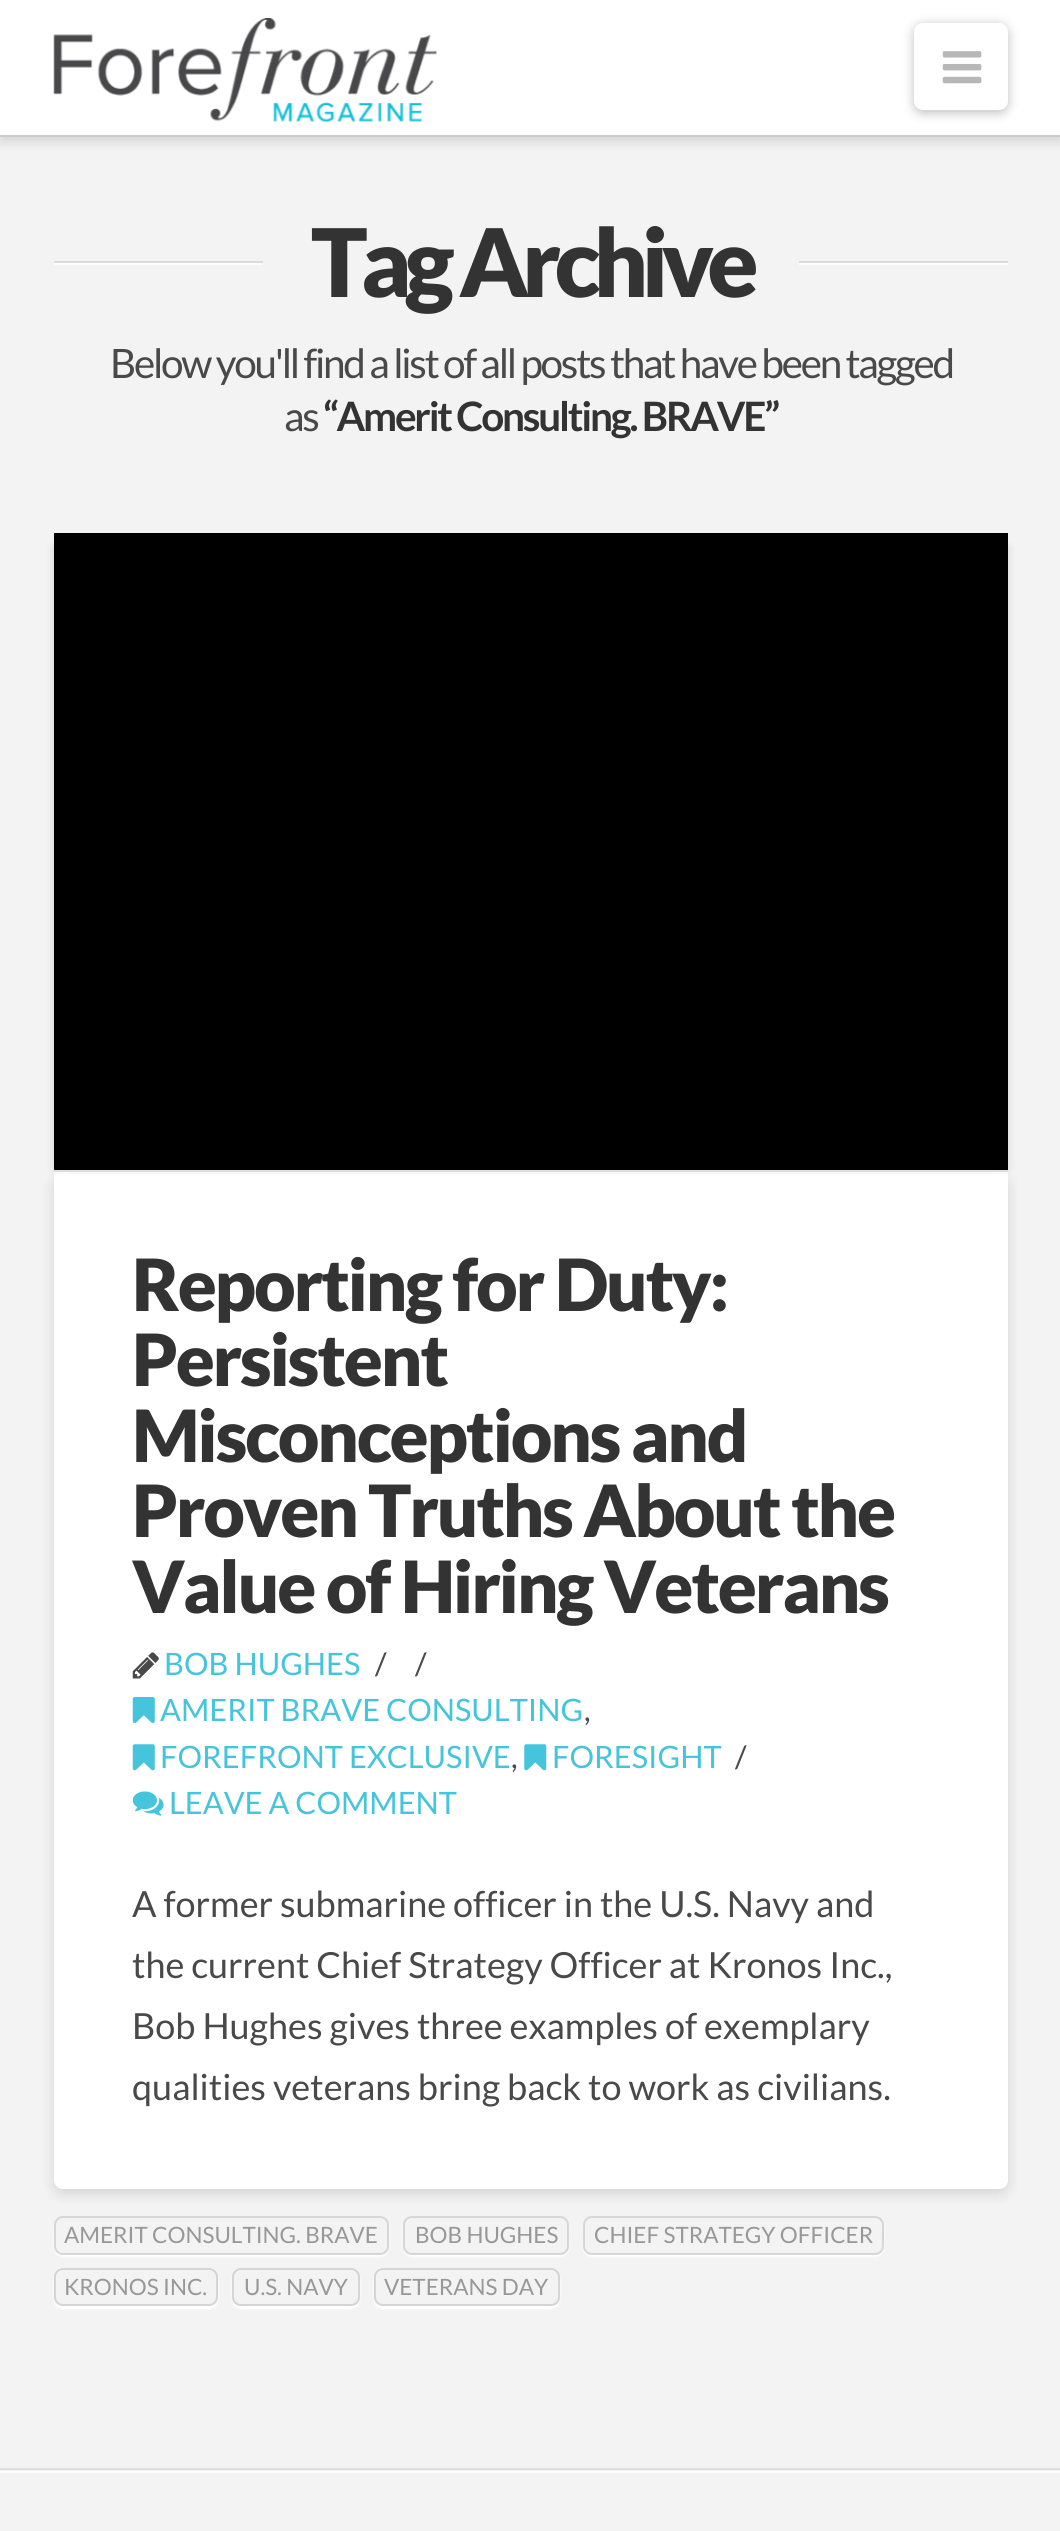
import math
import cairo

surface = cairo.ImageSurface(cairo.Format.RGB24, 1060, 2531)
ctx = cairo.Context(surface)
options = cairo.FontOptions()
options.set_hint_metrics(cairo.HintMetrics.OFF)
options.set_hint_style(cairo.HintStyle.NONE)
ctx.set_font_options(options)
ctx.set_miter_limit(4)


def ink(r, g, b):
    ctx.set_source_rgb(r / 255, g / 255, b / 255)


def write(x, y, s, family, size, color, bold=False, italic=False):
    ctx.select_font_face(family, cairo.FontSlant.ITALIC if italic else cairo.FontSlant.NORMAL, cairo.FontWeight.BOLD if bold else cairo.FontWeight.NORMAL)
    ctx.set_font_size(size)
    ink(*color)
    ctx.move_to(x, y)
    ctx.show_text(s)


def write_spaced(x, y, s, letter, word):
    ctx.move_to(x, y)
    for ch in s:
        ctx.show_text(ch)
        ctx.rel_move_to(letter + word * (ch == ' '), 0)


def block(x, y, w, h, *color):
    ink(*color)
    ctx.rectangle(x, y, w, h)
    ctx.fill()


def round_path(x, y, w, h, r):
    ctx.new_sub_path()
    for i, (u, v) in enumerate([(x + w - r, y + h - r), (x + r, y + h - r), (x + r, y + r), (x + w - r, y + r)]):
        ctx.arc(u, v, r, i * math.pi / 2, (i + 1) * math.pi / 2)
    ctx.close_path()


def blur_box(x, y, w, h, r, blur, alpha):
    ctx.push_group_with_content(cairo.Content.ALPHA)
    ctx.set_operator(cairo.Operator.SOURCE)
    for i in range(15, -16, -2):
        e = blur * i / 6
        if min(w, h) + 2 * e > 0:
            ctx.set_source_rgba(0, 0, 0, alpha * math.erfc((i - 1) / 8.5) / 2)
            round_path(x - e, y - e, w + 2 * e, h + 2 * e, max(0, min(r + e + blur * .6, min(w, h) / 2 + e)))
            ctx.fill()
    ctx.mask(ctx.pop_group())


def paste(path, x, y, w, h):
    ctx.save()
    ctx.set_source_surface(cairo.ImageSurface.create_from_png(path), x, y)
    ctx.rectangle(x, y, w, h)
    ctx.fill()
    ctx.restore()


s1 = dict(family="Lato", size=30.8, color=(70, 196, 219))
s2 = dict(family="Lato", size=30.8, color=(73, 73, 73))
s3 = dict(family="Lato", size=36, color=(73, 73, 73))
s4 = dict(family="Lato", size=22.5, color=(152, 152, 152))

ink(243, 243, 243)
ctx.paint()
ink(0, 0, 0)
blur_box(0, 5, 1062, 137, 0, 5.5, 0.13)
block(0, 0, 1060, 135, 255, 255, 255)
block(0, 135, 1060, 2, 204, 204, 204)
paste("pic1.png", 53, 18, 384, 104)
ink(0, 0, 0)
blur_box(914, 25, 94, 88, 9, 5.5, 0.25)
ink(255, 255, 255)
round_path(914, 23, 94, 87, 9)
ctx.fill()
paste("pic2.png", 942, 51, 40, 33)
block(54, 263, 209, 2, 253, 253, 253)
block(54, 261, 209, 2, 219, 219, 219)
ctx.select_font_face("Lato Black")
ctx.set_font_size(94.5)
ink(51, 51, 51)
write_spaced(311, 297, "Tag Archive", -6.75, 0)
block(799, 263, 209, 2, 253, 253, 253)
block(799, 261, 209, 2, 219, 219, 219)
ctx.select_font_face("Lato")
ctx.set_font_size(40.5)
ink(73, 73, 73)
write_spaced(110, 378, "Below you'll find a list of all posts that have been tagged", -2.25, 0)
write_spaced(284, 431, "as", -2.25, 0)
ctx.select_font_face("Lato", cairo.FontSlant.NORMAL, cairo.FontWeight.BOLD)
ink(51, 51, 51)
write_spaced(323, 431, "“Amerit Consulting. BRAVE”", -2.25, 0)
ink(0, 0, 0)
blur_box(54, 1177, 954, 1017, 9, 6.5, 0.13)
ink(255, 255, 255)
ctx.new_path()
ctx.move_to(54, 1172)
ctx.line_to(1008, 1172)
ctx.line_to(1008, 2180)
ctx.curve_to(1008, 2185, 1004, 2189, 999, 2189)
ctx.line_to(63, 2189)
ctx.curve_to(58, 2189, 54, 2185, 54, 2180)
ctx.close_path()
ctx.fill()
ink(0, 0, 0)
blur_box(54, 547, 936, 621, 0, 4.5, 0.13)
blur_box(72, 547, 936, 621, 0, 4.5, 0.13)
block(54, 1170, 954, 2, 221, 221, 221)
block(54, 533, 954, 637, 0, 0, 0)
ctx.select_font_face("Lato Black")
ctx.set_font_size(72)
ink(51, 51, 51)
write_spaced(132, 1311, "Reporting for Duty:", -2.25, 0)
write_spaced(132, 1386, "Persistent", -2.25, 0)
write_spaced(132, 1462, "Misconceptions and", -2.25, 0)
write_spaced(132, 1537, "Proven Truths About the", -2.25, 0)
write_spaced(132, 1613, "Value of Hiring Veterans", -2.25, 0)
paste("pic3.png", 132, 1652, 27, 27)
write(164, 1675, "BOB HUGHES", **s1)
write(375, 1675, "/", **s2)
write(415, 1675, "/", **s2)
paste("pic4.png", 132, 1697, 23, 26)
write(160, 1721, "AMERIT BRAVE CONSULTING", **s1)
write(584, 1721, ",", **s2)
paste("pic5.png", 132, 1744, 23, 27)
write(160, 1768, "FOREFRONT EXCLUSIVE", **s1)
write(511, 1768, ",", **s2)
paste("pic6.png", 524, 1744, 23, 27)
write(552, 1768, "FORESIGHT", **s1)
write(735, 1768, "/", **s2)
paste("pic7.png", 132, 1791, 32, 25)
write(169, 1814, "LEAVE A COMMENT", **s1)
write(132, 1917, "A former submarine officer in the U.S. Navy and", **s3)
write(132, 1978, "the current Chief Strategy Officer at Kronos Inc.,", **s3)
write(132, 2039, "Bob Hughes gives three examples of exemplary", **s3)
write(132, 2100, "qualities veterans bring back to work as civilians.", **s3)
ctx.save()
ctx.set_fill_rule(cairo.FillRule.EVEN_ODD)
ctx.new_path()
ctx.move_to(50, 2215)
ctx.line_to(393, 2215)
ctx.line_to(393, 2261)
ctx.line_to(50, 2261)
ctx.close_path()
ctx.move_to(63, 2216)
ctx.line_to(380, 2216)
ctx.curve_to(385, 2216, 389, 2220, 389, 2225)
ctx.line_to(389, 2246)
ctx.curve_to(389, 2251, 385, 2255, 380, 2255)
ctx.line_to(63, 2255)
ctx.curve_to(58, 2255, 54, 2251, 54, 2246)
ctx.line_to(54, 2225)
ctx.curve_to(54, 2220, 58, 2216, 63, 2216)
ctx.close_path()
ctx.clip()
ink(255, 255, 255)
blur_box(54, 2219, 335, 38, 9, 1, 0.95)
ctx.restore()
round_path(55, 2217, 333, 37, 8)
ctx.set_source_rgba(0, 0, 0, 0.12)
ctx.stroke()
write(64, 2243, "AMERIT CONSULTING. BRAVE", **s4)
ctx.save()
ctx.set_fill_rule(cairo.FillRule.EVEN_ODD)
ctx.new_path()
ctx.move_to(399, 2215)
ctx.line_to(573, 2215)
ctx.line_to(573, 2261)
ctx.line_to(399, 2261)
ctx.close_path()
ctx.move_to(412, 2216)
ctx.line_to(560, 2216)
ctx.curve_to(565, 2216, 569, 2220, 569, 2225)
ctx.line_to(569, 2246)
ctx.curve_to(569, 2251, 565, 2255, 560, 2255)
ctx.line_to(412, 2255)
ctx.curve_to(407, 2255, 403, 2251, 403, 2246)
ctx.line_to(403, 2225)
ctx.curve_to(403, 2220, 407, 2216, 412, 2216)
ctx.close_path()
ctx.clip()
ink(255, 255, 255)
blur_box(403, 2219, 166, 38, 9, 1, 0.95)
ctx.restore()
round_path(404, 2217, 164, 37, 8)
ctx.set_source_rgba(0, 0, 0, 0.12)
ctx.stroke()
write(415, 2243, "BOB HUGHES", **s4)
ctx.save()
ctx.set_fill_rule(cairo.FillRule.EVEN_ODD)
ctx.new_path()
ctx.move_to(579, 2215)
ctx.line_to(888, 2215)
ctx.line_to(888, 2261)
ctx.line_to(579, 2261)
ctx.close_path()
ctx.move_to(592, 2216)
ctx.line_to(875, 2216)
ctx.curve_to(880, 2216, 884, 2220, 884, 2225)
ctx.line_to(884, 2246)
ctx.curve_to(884, 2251, 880, 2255, 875, 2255)
ctx.line_to(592, 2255)
ctx.curve_to(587, 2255, 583, 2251, 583, 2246)
ctx.line_to(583, 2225)
ctx.curve_to(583, 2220, 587, 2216, 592, 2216)
ctx.close_path()
ctx.clip()
ink(255, 255, 255)
blur_box(583, 2219, 301, 38, 9, 1, 0.95)
ctx.restore()
round_path(584, 2217, 299, 37, 8)
ctx.set_source_rgba(0, 0, 0, 0.12)
ctx.stroke()
write(594, 2243, "CHIEF STRATEGY OFFICER", **s4)
ctx.save()
ctx.set_fill_rule(cairo.FillRule.EVEN_ODD)
ctx.new_path()
ctx.move_to(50, 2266)
ctx.line_to(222, 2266)
ctx.line_to(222, 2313)
ctx.line_to(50, 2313)
ctx.close_path()
ctx.move_to(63, 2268)
ctx.line_to(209, 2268)
ctx.curve_to(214, 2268, 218, 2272, 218, 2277)
ctx.line_to(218, 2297)
ctx.curve_to(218, 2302, 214, 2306, 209, 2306)
ctx.line_to(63, 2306)
ctx.curve_to(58, 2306, 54, 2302, 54, 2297)
ctx.line_to(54, 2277)
ctx.curve_to(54, 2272, 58, 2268, 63, 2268)
ctx.close_path()
ctx.clip()
ink(255, 255, 255)
blur_box(54, 2270, 164, 39, 9, 1, 0.95)
ctx.restore()
round_path(55, 2269, 162, 36, 8)
ink(213, 213, 213)
ctx.stroke()
write(64, 2295, "KRONOS INC.", **s4)
ctx.save()
ctx.set_fill_rule(cairo.FillRule.EVEN_ODD)
ctx.new_path()
ctx.move_to(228, 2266)
ctx.line_to(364, 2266)
ctx.line_to(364, 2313)
ctx.line_to(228, 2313)
ctx.close_path()
ctx.move_to(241, 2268)
ctx.line_to(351, 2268)
ctx.curve_to(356, 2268, 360, 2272, 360, 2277)
ctx.line_to(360, 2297)
ctx.curve_to(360, 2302, 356, 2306, 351, 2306)
ctx.line_to(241, 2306)
ctx.curve_to(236, 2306, 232, 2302, 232, 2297)
ctx.line_to(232, 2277)
ctx.curve_to(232, 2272, 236, 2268, 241, 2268)
ctx.close_path()
ctx.clip()
ink(255, 255, 255)
blur_box(232, 2270, 128, 39, 9, 1, 0.95)
ctx.restore()
round_path(233, 2269, 126, 36, 8)
ink(213, 213, 213)
ctx.stroke()
write(244, 2295, "U.S. NAVY", **s4)
ctx.save()
ctx.set_fill_rule(cairo.FillRule.EVEN_ODD)
ctx.new_path()
ctx.move_to(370, 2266)
ctx.line_to(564, 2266)
ctx.line_to(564, 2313)
ctx.line_to(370, 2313)
ctx.close_path()
ctx.move_to(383, 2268)
ctx.line_to(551, 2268)
ctx.curve_to(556, 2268, 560, 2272, 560, 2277)
ctx.line_to(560, 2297)
ctx.curve_to(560, 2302, 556, 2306, 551, 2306)
ctx.line_to(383, 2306)
ctx.curve_to(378, 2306, 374, 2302, 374, 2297)
ctx.line_to(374, 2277)
ctx.curve_to(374, 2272, 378, 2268, 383, 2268)
ctx.close_path()
ctx.clip()
ink(255, 255, 255)
blur_box(374, 2270, 186, 39, 9, 1, 0.95)
ctx.restore()
round_path(375, 2269, 184, 36, 8)
ink(213, 213, 213)
ctx.stroke()
write(384, 2295, "VETERANS DAY", **s4)
block(0, 2471, 1060, 2, 253, 253, 253)
block(0, 2468, 1060, 2, 222, 222, 222)
surface.write_to_png("screenshot.png")
